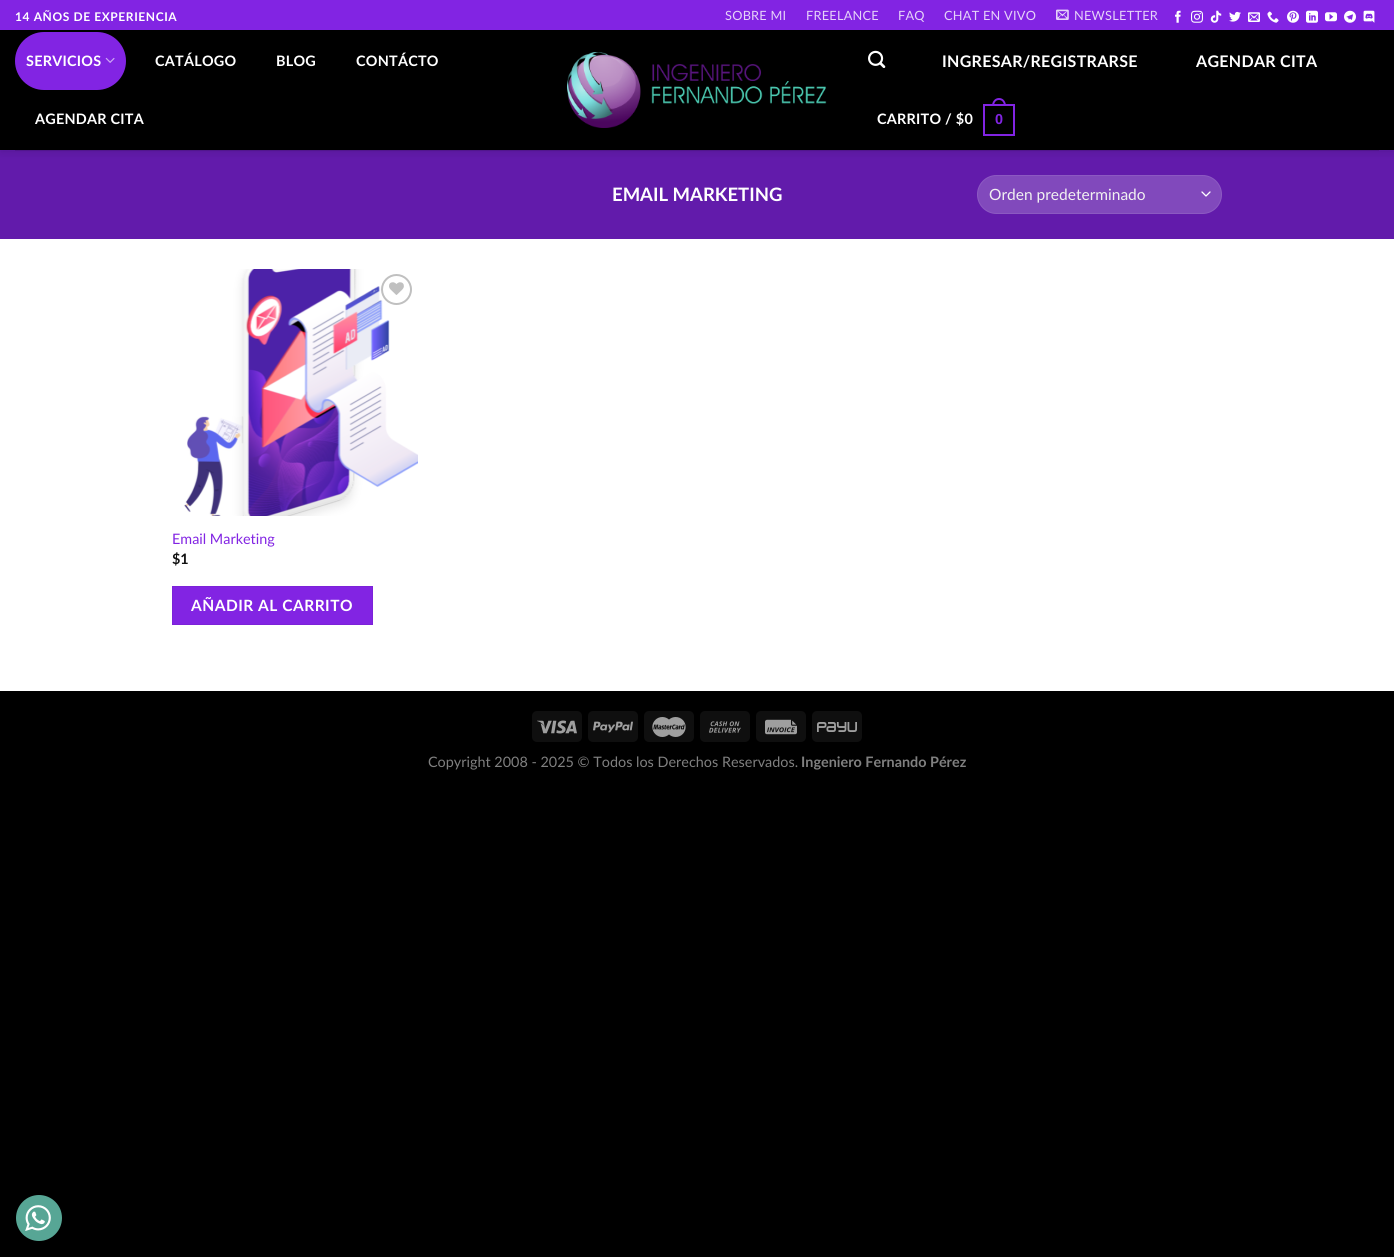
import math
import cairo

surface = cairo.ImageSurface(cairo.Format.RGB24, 1394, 1257)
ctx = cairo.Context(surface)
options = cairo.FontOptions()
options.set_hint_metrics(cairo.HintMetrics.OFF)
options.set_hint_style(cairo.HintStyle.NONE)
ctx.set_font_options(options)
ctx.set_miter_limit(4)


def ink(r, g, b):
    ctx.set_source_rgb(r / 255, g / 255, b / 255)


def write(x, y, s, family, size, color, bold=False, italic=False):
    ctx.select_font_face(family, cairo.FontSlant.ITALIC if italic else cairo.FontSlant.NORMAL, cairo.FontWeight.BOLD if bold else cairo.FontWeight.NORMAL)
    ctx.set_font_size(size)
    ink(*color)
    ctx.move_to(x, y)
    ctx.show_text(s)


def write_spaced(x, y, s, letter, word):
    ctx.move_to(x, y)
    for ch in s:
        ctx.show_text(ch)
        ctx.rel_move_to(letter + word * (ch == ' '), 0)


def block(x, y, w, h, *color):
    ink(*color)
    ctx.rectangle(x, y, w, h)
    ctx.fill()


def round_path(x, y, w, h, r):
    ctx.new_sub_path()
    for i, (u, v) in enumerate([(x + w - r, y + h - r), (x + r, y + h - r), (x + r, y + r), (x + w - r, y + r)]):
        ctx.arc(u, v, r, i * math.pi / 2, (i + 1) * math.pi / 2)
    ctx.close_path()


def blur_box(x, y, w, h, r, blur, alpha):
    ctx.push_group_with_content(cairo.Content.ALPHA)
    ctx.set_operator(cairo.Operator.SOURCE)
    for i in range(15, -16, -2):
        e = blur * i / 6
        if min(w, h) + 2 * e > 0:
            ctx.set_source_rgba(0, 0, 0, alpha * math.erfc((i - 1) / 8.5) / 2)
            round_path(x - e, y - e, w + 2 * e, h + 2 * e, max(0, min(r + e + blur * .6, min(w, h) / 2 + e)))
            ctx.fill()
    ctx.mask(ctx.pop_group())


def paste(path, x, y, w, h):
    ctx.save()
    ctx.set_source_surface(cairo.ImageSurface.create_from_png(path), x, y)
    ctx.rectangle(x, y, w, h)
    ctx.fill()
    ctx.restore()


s1 = dict(family="Lato", size=18.5, color=(255, 255, 255), bold=True)
s2 = dict(family="Lato", size=15.5, color=(241, 241, 241))
s3 = dict(family="Lato", size=14.4, color=(130, 36, 227))
s4 = dict(family="Lato", size=14.4, color=(17, 17, 17), bold=True)
s5 = dict(family="Lato", size=14.4, color=(128, 128, 128))
s6 = dict(family="Lato", size=14.4, color=(128, 128, 128), bold=True)

ink(0, 0, 0)
ctx.paint()
block(0, 239, 1394, 452, 255, 255, 255)
block(0, 150, 1394, 89, 98, 27, 171)
ink(0, 0, 0)
blur_box(1, 1, 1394, 150, 0, 5, 0.15)
block(0, 0, 1394, 30, 130, 36, 227)
ctx.select_font_face("Lato", cairo.FontSlant.NORMAL, cairo.FontWeight.BOLD)
ctx.set_font_size(12)
ink(255, 255, 255)
write_spaced(15, 21, "14 AÑOS DE EXPERIENCIA", 0.6, 0)
ctx.select_font_face("Lato")
ctx.set_font_size(12.75)
ink(230, 211, 249)
write_spaced(725, 20, "SOBRE MI", 0.25, 0)
write_spaced(806, 20, "FREELANCE", 0.25, 0)
write_spaced(898, 20, "FAQ", 0.25, 0)
write_spaced(944, 20, "CHAT EN VIVO", 0.25, 0)
paste("pic1.png", 1056, 9, 13, 11)
write_spaced(1074, 20, "NEWSLETTER", 0.25, 0)
paste("pic2.png", 1175, 10, 6, 13)
paste("pic3.png", 1191, 10, 12, 13)
paste("pic4.png", 1210, 10, 12, 13)
paste("pic5.png", 1229, 11, 12, 11)
paste("pic6.png", 1248, 12, 12, 10)
paste("pic7.png", 1267, 11, 12, 12)
paste("pic8.png", 1287, 10, 12, 13)
paste("pic9.png", 1306, 10, 12, 13)
paste("pic10.png", 1325, 12, 12, 10)
paste("pic11.png", 1344, 10, 12, 13)
paste("pic12.png", 1363, 10, 12, 13)
ink(130, 36, 227)
round_path(15, 32, 111, 58, 29)
ctx.fill()
ctx.select_font_face("Lato", cairo.FontSlant.NORMAL, cairo.FontWeight.BOLD)
ctx.set_font_size(14.4)
ink(255, 255, 255)
write_spaced(26, 66, "SERVICIOS", 0.25, 0)
paste("pic13.png", 105, 57, 10, 6)
write_spaced(155, 66, "CATÁLOGO", 0.25, 0)
write_spaced(276, 66, "BLOG", 0.25, 0)
write_spaced(356, 66, "CONTÁCTO", 0.25, 0)
write_spaced(35, 124, "AGENDAR CITA", 0.25, 0)
paste("pic14.png", 567, 52, 260, 76)
paste("pic15.png", 868, 50, 18, 18)
ctx.set_font_size(16)
write_spaced(942, 67, "INGRESAR/REGISTRARSE", 0.3, 0)
write_spaced(1196, 67, "AGENDAR CITA", 0.3, 0)
ctx.set_font_size(14.4)
write_spaced(877, 124, "CARRITO / $0", 0.25, 0)
ctx.rectangle(984, 105, 30, 30)
ink(130, 36, 227)
ctx.stroke()
ctx.set_fill_rule(cairo.FillRule.EVEN_ODD)
ctx.new_path()
ctx.move_to(999, 98)
ctx.curve_to(1003.5, 98, 1006, 102, 1006, 106)
ctx.line_to(992, 106)
ctx.curve_to(992, 102, 994.5, 98, 999, 98)
ctx.close_path()
ctx.move_to(999, 100)
ctx.curve_to(1002.5, 100, 1004, 103, 1004, 106)
ctx.line_to(994, 106)
ctx.curve_to(994, 103, 995.5, 100, 999, 100)
ctx.close_path()
ctx.fill()
ctx.select_font_face("Liberation Sans", cairo.FontSlant.NORMAL, cairo.FontWeight.BOLD)
write_spaced(995, 124, "0", 0.25, 0)
block(15, 150, 1364, 1, 81, 22, 141)
write(612, 201, "EMAIL MARKETING", **s1)
ink(129, 73, 188)
round_path(977, 175, 245, 39, 19.5)
ctx.fill()
ctx.new_path()
ctx.move_to(1202, 192)
ctx.line_to(1206, 196)
ctx.line_to(1210, 192)
ink(255, 255, 255)
ctx.set_line_width(1.3)
ctx.set_line_cap(cairo.LineCap.ROUND)
ctx.set_line_join(cairo.LineJoin.ROUND)
ctx.stroke()
round_path(977.5, 175.5, 244, 38, 19)
ctx.set_source_rgba(1, 1, 1, 0.09)
ctx.set_line_width(1)
ctx.set_line_cap(cairo.LineCap.BUTT)
ctx.set_line_join(cairo.LineJoin.MITER)
ctx.stroke()
write(989, 200, "Orden predeterminado", **s2)
paste("pic16.png", 184, 269, 234, 247)
ctx.arc(396.5, 289.5, 14.5, 0, 2 * math.pi)
ink(192, 192, 192)
ctx.set_line_width(2)
ctx.stroke()
paste("pic17.png", 389, 282, 15, 13)
write(172, 544, "Email Marketing", **s3)
write(172, 564, "$1", **s4)
ink(130, 36, 227)
ctx.rectangle(172.5, 586.5, 200, 38)
ctx.fill_preserve()
ink(124, 34, 216)
ctx.set_line_width(1)
ctx.stroke()
ctx.set_font_size(15.5)
ink(255, 255, 255)
write_spaced(191, 611, "AÑADIR AL CARRITO", 0.5, 0)
ink(15, 15, 15)
round_path(532, 711, 50, 31, 5)
ctx.fill()
paste("pic18.png", 537, 720, 40, 14)
round_path(588, 711, 50, 31, 5)
ctx.fill()
paste("pic19.png", 593, 721, 40, 12)
round_path(644, 711, 50, 31, 5)
ctx.fill()
paste("pic20.png", 652, 717, 34, 20)
round_path(700, 711, 50, 31, 5)
ctx.fill()
paste("pic21.png", 709, 721, 32, 12)
round_path(756, 711, 50, 31, 5)
ctx.fill()
paste("pic22.png", 765, 719, 32, 16)
round_path(812, 711, 50, 31, 5)
ctx.fill()
paste("pic23.png", 817, 722, 40, 10)
write(428, 767, "Copyright 2008 - 2025 © Todos los Derechos Reservados.", **s5)
write(801, 767, "Ingeniero Fernando Pérez", **s6)
ink(87, 166, 149)
ctx.new_path()
ctx.arc(39, 1218, 23, 0, 2 * math.pi)
ctx.fill()
paste("pic24.png", 25, 1205, 26, 26)
surface.write_to_png("screenshot.png")
